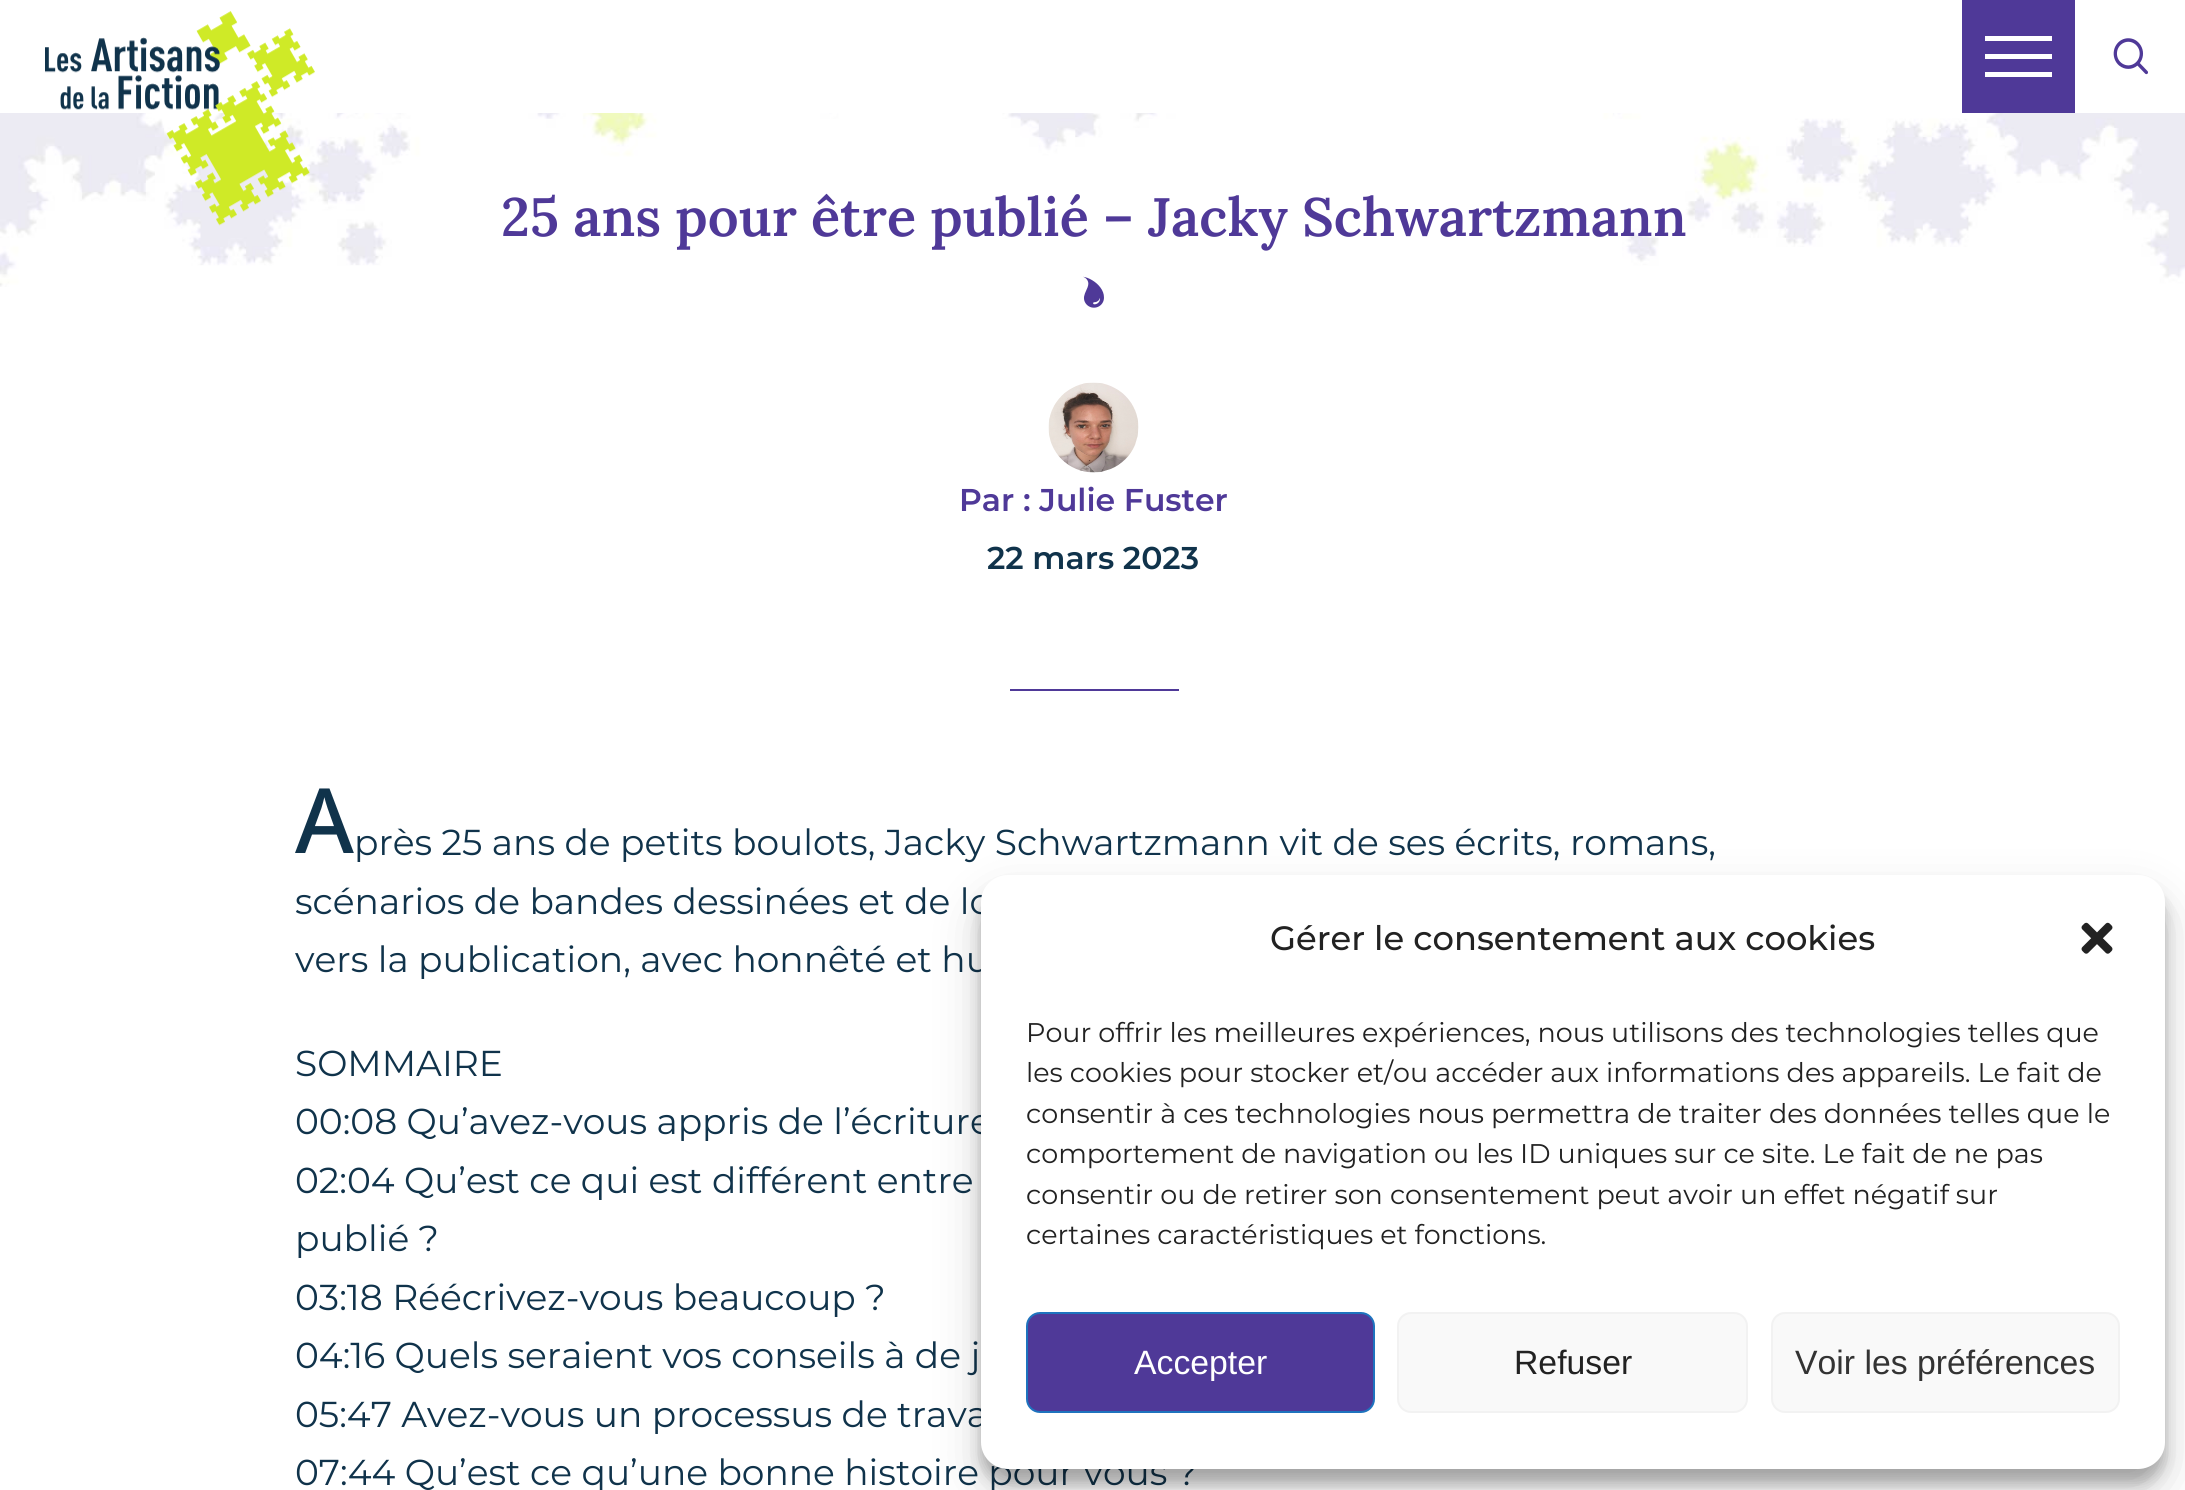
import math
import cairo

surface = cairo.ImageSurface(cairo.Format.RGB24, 2185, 1490)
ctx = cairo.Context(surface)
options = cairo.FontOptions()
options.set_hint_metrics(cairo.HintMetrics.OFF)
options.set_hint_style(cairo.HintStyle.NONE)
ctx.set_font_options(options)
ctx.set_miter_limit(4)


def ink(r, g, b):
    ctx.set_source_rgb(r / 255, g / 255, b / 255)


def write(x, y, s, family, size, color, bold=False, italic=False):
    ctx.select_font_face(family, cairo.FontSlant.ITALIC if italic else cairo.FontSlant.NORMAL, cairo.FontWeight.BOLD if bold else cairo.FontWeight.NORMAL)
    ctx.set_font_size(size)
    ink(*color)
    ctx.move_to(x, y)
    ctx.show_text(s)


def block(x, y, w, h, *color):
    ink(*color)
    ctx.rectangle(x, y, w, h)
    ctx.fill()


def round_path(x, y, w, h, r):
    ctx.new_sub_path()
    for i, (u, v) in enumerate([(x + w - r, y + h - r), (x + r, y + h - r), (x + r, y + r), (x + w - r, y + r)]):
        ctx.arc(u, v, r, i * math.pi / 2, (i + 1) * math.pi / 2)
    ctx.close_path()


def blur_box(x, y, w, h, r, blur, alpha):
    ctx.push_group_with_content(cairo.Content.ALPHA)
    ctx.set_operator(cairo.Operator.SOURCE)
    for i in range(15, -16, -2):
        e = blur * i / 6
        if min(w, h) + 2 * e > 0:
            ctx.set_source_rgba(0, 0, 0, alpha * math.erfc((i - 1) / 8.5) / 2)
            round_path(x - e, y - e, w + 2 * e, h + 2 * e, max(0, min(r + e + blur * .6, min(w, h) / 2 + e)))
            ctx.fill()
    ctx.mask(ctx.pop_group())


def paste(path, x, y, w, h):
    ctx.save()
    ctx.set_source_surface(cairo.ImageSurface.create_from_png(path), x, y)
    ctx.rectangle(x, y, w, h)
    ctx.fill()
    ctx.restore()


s1 = dict(family="Lora SemiBold", size=54, color=(79, 57, 152))
s2 = dict(family="Montserrat SemiBold", size=31.5, color=(79, 57, 152))
s3 = dict(family="Montserrat SemiBold", size=31.5, color=(16, 51, 75))
s4 = dict(family="Noto Sans Medium", size=90, color=(16, 51, 75))
s5 = dict(family="Montserrat", size=36, color=(16, 51, 75))
s6 = dict(family="Montserrat Medium", size=33.75, color=(34, 34, 34))
s7 = dict(family="Montserrat", size=27, color=(34, 34, 34))
s8 = dict(family="Liberation Sans", size=33.75, color=(255, 255, 255))
s9 = dict(family="Liberation Sans", size=33.75, color=(34, 34, 34))
s10 = dict(family="Liberation Sans", size=33.75, color=(51, 51, 51))

ink(255, 255, 255)
ctx.paint()
paste("pic3.png", 0, 113, 2185, 174)
paste("pic1.png", 45, 11, 270, 215)
block(1962, 0, 113, 113, 79, 57, 152)
block(1985, 36, 67, 5, 255, 255, 255)
block(1985, 54, 67, 5, 255, 255, 255)
block(1985, 72, 67, 5, 255, 255, 255)
paste("pic2.png", 2113, 38, 35, 37)
write(501, 236, "25 ans pour être publié – Jacky Schwartzmann", **s1)
paste("pic4.png", 1083, 276, 21, 32)
paste("pic5.png", 1048, 382, 91, 91)
write(959, 511, "Par : Julie Fuster", **s2)
write(987, 569, "22 mars 2023", **s3)
block(1010, 689, 169, 2, 79, 57, 152)
write(295, 853, "A", **s4)
write(354, 855, "près 25 ans de petits boulots, Jacky Schwartzmann vit de ses écrits, romans,", **s5)
write(295, 914, "scénarios de bandes dessinées et de lo", **s5)
write(295, 972, "vers la publication, avec honnêté et hu", **s5)
write(295, 1076, "SOMMAIRE", **s5)
write(295, 1134, "00:08 Qu’avez-vous appris de l’écriture", **s5)
write(295, 1193, "02:04 Qu’est ce qui est différent entre", **s5)
write(295, 1251, "publié ?", **s5)
write(295, 1310, "03:18 Réécrivez-vous beaucoup ?", **s5)
write(295, 1368, "04:16 Quels seraient vos conseils à de j", **s5)
write(295, 1427, "05:47 Avez-vous un processus de trava", **s5)
write(295, 1485, "07:44 Qu’est ce qu’une bonne histoire pour vous ?", **s5)
ink(0, 0, 0)
blur_box(981, 889, 1184, 594, 27, 7, 0.23)
blur_box(981, 898, 1184, 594, 27, 22.5, 0.19)
ink(255, 255, 255)
round_path(981, 875, 1184, 594, 27)
ctx.fill()
write(1270, 950, "Gérer le consentement aux cookies", **s6)
paste("pic6.png", 2081, 922, 32, 32)
write(1026, 1042, "Pour offrir les meilleures expériences, nous utilisons des technologies telles que", **s7)
write(1026, 1082, "les cookies pour stocker et/ou accéder aux informations des appareils. Le fait de", **s7)
write(1026, 1123, "consentir à ces technologies nous permettra de traiter des données telles que le", **s7)
write(1026, 1163, "comportement de navigation ou les ID uniques sur ce site. Le fait de ne pas", **s7)
write(1026, 1204, "consentir ou de retirer son consentement peut avoir un effet négatif sur", **s7)
write(1026, 1244, "certaines caractéristiques et fonctions.", **s7)
ink(79, 57, 152)
round_path(1027, 1313, 347, 99, 13)
ctx.fill_preserve()
ink(30, 115, 190)
ctx.stroke()
write(1134, 1374, "Accepter", **s8)
ink(249, 249, 249)
round_path(1398, 1313, 349, 99, 13)
ctx.fill_preserve()
ink(242, 242, 242)
ctx.stroke()
write(1514, 1374, "Refuser", **s9)
ink(249, 249, 249)
round_path(1772, 1313, 347, 99, 13)
ctx.fill_preserve()
ink(242, 242, 242)
ctx.stroke()
write(1795, 1374, "Voir les préférences", **s10)
surface.write_to_png("screenshot.png")
